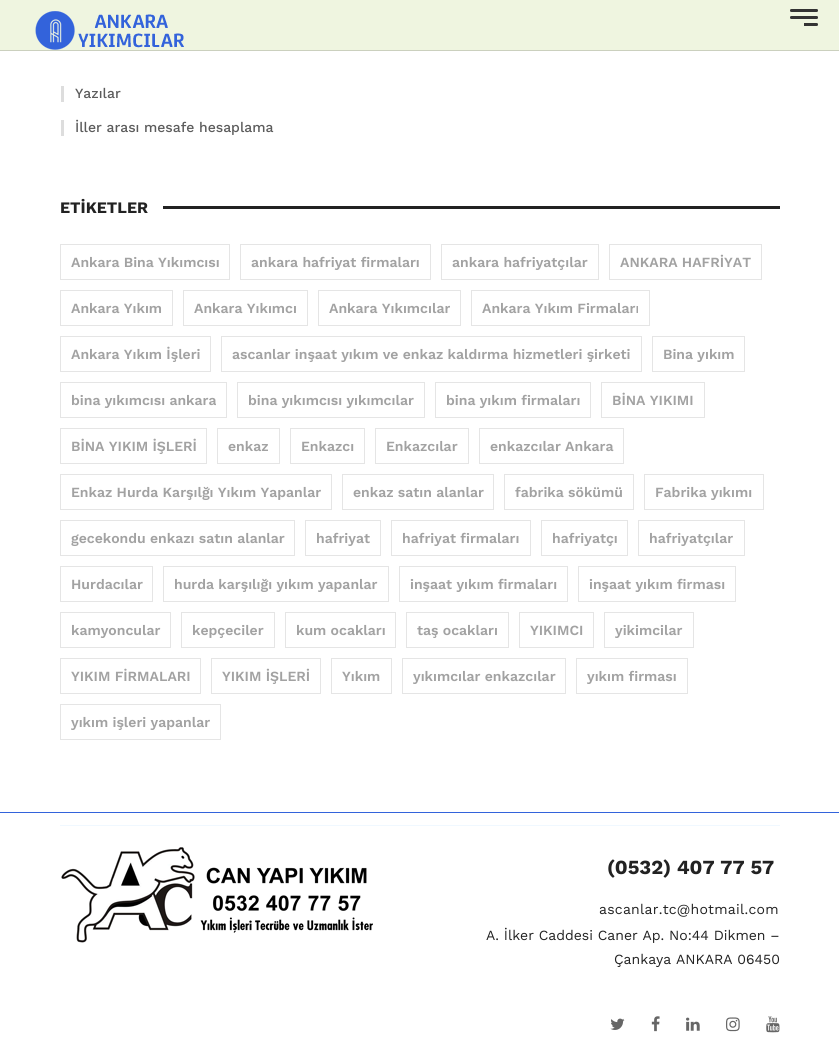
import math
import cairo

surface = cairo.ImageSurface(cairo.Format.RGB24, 839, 1048)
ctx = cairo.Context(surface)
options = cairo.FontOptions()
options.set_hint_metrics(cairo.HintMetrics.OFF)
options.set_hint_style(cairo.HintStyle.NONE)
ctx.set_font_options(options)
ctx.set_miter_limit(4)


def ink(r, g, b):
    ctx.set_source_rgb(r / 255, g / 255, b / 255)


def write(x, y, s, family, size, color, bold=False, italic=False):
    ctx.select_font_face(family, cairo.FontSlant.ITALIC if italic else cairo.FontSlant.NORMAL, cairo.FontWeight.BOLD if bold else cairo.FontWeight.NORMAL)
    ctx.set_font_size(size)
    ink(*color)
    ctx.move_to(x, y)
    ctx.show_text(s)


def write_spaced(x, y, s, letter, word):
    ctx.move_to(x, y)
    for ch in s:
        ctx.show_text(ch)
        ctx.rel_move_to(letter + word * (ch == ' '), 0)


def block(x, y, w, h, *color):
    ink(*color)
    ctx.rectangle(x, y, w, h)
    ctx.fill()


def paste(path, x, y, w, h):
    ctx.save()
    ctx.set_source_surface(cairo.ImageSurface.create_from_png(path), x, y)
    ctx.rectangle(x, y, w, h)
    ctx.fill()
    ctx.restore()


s1 = dict(family="Work Sans Medium", size=14, color=(92, 92, 92))
s2 = dict(family="Work Sans", size=16, color=(34, 34, 34), bold=True)
s3 = dict(family="Work Sans SemiBold", size=14, color=(162, 162, 162))
s4 = dict(family="Work Sans", size=20, color=(34, 34, 34), bold=True)
s5 = dict(family="Work Sans", size=14, color=(34, 34, 34))

ink(255, 255, 255)
ctx.paint()
block(0, 0, 839, 50, 239, 245, 224)
block(0, 50, 839, 1, 203, 208, 190)
paste("pic1.png", 35, 11, 149, 39)
ink(51, 51, 51)
ctx.new_path()
ctx.move_to(791.5, 9)
ctx.line_to(804, 9)
ctx.line_to(804, 12)
ctx.line_to(791.5, 12)
ctx.curve_to(790.5, 12, 790, 11.5, 790, 10.5)
ctx.curve_to(790, 9.5, 790.5, 9, 791.5, 9)
ctx.close_path()
ctx.fill()
ctx.new_path()
ctx.move_to(804, 9)
ctx.line_to(816.5, 9)
ctx.curve_to(817.5, 9, 818, 9.5, 818, 10.5)
ctx.curve_to(818, 11.5, 817.5, 12, 816.5, 12)
ctx.line_to(804, 12)
ctx.close_path()
ctx.fill()
ctx.new_path()
ctx.move_to(791.5, 16)
ctx.line_to(804, 16)
ctx.line_to(804, 19)
ctx.line_to(791.5, 19)
ctx.curve_to(790.5, 19, 790, 18.5, 790, 17.5)
ctx.curve_to(790, 16.5, 790.5, 16, 791.5, 16)
ctx.close_path()
ctx.fill()
ctx.new_path()
ctx.move_to(804, 16)
ctx.line_to(816.5, 16)
ctx.curve_to(817.5, 16, 818, 16.5, 818, 17.5)
ctx.curve_to(818, 18.5, 817.5, 19, 816.5, 19)
ctx.line_to(804, 19)
ctx.close_path()
ctx.fill()
ctx.new_path()
ctx.move_to(804, 23)
ctx.line_to(816.5, 23)
ctx.curve_to(817.5, 23, 818, 23.5, 818, 24.5)
ctx.curve_to(818, 25.5, 817.5, 26, 816.5, 26)
ctx.line_to(804, 26)
ctx.close_path()
ctx.fill()
block(61, 86, 3, 16, 221, 221, 221)
write(75, 98, "Yazılar", **s1)
block(61, 120, 3, 16, 221, 221, 221)
write(75, 132, "İller arası mesafe hesaplama", **s1)
write(60, 213, "ETİKETLER", **s2)
block(163, 206, 617, 3, 34, 34, 34)
ctx.rectangle(60.5, 244.5, 169, 35)
ink(229, 229, 229)
ctx.set_line_width(1)
ctx.stroke()
write(71, 267, "Ankara Bina Yıkımcısı", **s3)
ctx.rectangle(240.5, 244.5, 190, 35)
ink(229, 229, 229)
ctx.stroke()
write(251, 267, "ankara hafriyat firmaları", **s3)
ctx.rectangle(441.5, 244.5, 157, 35)
ink(229, 229, 229)
ctx.stroke()
write(452, 267, "ankara hafriyatçılar", **s3)
ctx.rectangle(609.5, 244.5, 152, 35)
ink(229, 229, 229)
ctx.stroke()
write(620, 267, "ANKARA HAFRİYAT", **s3)
ctx.rectangle(60.5, 290.5, 112, 35)
ink(229, 229, 229)
ctx.stroke()
write(71, 313, "Ankara Yıkım", **s3)
ctx.rectangle(183.5, 290.5, 124, 35)
ink(229, 229, 229)
ctx.stroke()
write(194, 313, "Ankara Yıkımcı", **s3)
ctx.rectangle(318.5, 290.5, 142, 35)
ink(229, 229, 229)
ctx.stroke()
write(329, 313, "Ankara Yıkımcılar", **s3)
ctx.rectangle(471.5, 290.5, 178, 35)
ink(229, 229, 229)
ctx.stroke()
write(482, 313, "Ankara Yıkım Firmaları", **s3)
ctx.rectangle(60.5, 336.5, 150, 35)
ink(229, 229, 229)
ctx.stroke()
write(71, 359, "Ankara Yıkım İşleri", **s3)
ctx.rectangle(221.5, 336.5, 420, 35)
ink(229, 229, 229)
ctx.stroke()
write(232, 359, "ascanlar inşaat yıkım ve enkaz kaldırma hizmetleri şirketi", **s3)
ctx.rectangle(652.5, 336.5, 92, 35)
ink(229, 229, 229)
ctx.stroke()
write(663, 359, "Bina yıkım", **s3)
ctx.rectangle(60.5, 382.5, 166, 35)
ink(229, 229, 229)
ctx.stroke()
write(71, 405, "bina yıkımcısı ankara", **s3)
ctx.rectangle(237.5, 382.5, 187, 35)
ink(229, 229, 229)
ctx.stroke()
write(248, 405, "bina yıkımcısı yıkımcılar", **s3)
ctx.rectangle(435.5, 382.5, 155, 35)
ink(229, 229, 229)
ctx.stroke()
write(446, 405, "bina yıkım firmaları", **s3)
ctx.rectangle(601.5, 382.5, 103, 35)
ink(229, 229, 229)
ctx.stroke()
write(612, 405, "BİNA YIKIMI", **s3)
ctx.rectangle(60.5, 428.5, 146, 35)
ink(229, 229, 229)
ctx.stroke()
write(71, 451, "BİNA YIKIM İŞLERİ", **s3)
ctx.rectangle(217.5, 428.5, 62, 35)
ink(229, 229, 229)
ctx.stroke()
write(228, 451, "enkaz", **s3)
ctx.rectangle(290.5, 428.5, 74, 35)
ink(229, 229, 229)
ctx.stroke()
write(301, 451, "Enkazcı", **s3)
ctx.rectangle(375.5, 428.5, 93, 35)
ink(229, 229, 229)
ctx.stroke()
write(386, 451, "Enkazcılar", **s3)
ctx.rectangle(479.5, 428.5, 144, 35)
ink(229, 229, 229)
ctx.stroke()
write(490, 451, "enkazcılar Ankara", **s3)
ctx.rectangle(60.5, 474.5, 271, 35)
ink(229, 229, 229)
ctx.stroke()
write(71, 497, "Enkaz Hurda Karşılğı Yıkım Yapanlar", **s3)
ctx.rectangle(342.5, 474.5, 151, 35)
ink(229, 229, 229)
ctx.stroke()
write(353, 497, "enkaz satın alanlar", **s3)
ctx.rectangle(504.5, 474.5, 129, 35)
ink(229, 229, 229)
ctx.stroke()
write(515, 497, "fabrika sökümü", **s3)
ctx.rectangle(644.5, 474.5, 119, 35)
ink(229, 229, 229)
ctx.stroke()
write(655, 497, "Fabrika yıkımı", **s3)
ctx.rectangle(60.5, 520.5, 234, 35)
ink(229, 229, 229)
ctx.stroke()
write(71, 543, "gecekondu enkazı satın alanlar", **s3)
ctx.rectangle(305.5, 520.5, 75, 35)
ink(229, 229, 229)
ctx.stroke()
write(316, 543, "hafriyat", **s3)
ctx.rectangle(391.5, 520.5, 139, 35)
ink(229, 229, 229)
ctx.stroke()
write(402, 543, "hafriyat firmaları", **s3)
ctx.rectangle(541.5, 520.5, 86, 35)
ink(229, 229, 229)
ctx.stroke()
write(552, 543, "hafriyatçı", **s3)
ctx.rectangle(638.5, 520.5, 106, 35)
ink(229, 229, 229)
ctx.stroke()
write(649, 543, "hafriyatçılar", **s3)
ctx.rectangle(60.5, 566.5, 92, 35)
ink(229, 229, 229)
ctx.stroke()
write(71, 589, "Hurdacılar", **s3)
ctx.rectangle(163.5, 566.5, 225, 35)
ink(229, 229, 229)
ctx.stroke()
write(174, 589, "hurda karşılığı yıkım yapanlar", **s3)
ctx.rectangle(399.5, 566.5, 168, 35)
ink(229, 229, 229)
ctx.stroke()
write(410, 589, "inşaat yıkım firmaları", **s3)
ctx.rectangle(578.5, 566.5, 157, 35)
ink(229, 229, 229)
ctx.stroke()
write(589, 589, "inşaat yıkım firması", **s3)
ctx.rectangle(60.5, 612.5, 110, 35)
ink(229, 229, 229)
ctx.stroke()
write(71, 635, "kamyoncular", **s3)
ctx.rectangle(181.5, 612.5, 93, 35)
ink(229, 229, 229)
ctx.stroke()
write(192, 635, "kepçeciler", **s3)
ctx.rectangle(285.5, 612.5, 110, 35)
ink(229, 229, 229)
ctx.stroke()
write(296, 635, "kum ocakları", **s3)
ctx.rectangle(406.5, 612.5, 102, 35)
ink(229, 229, 229)
ctx.stroke()
write(417, 635, "taş ocakları", **s3)
ctx.rectangle(519.5, 612.5, 74, 35)
ink(229, 229, 229)
ctx.stroke()
write(530, 635, "YIKIMCI", **s3)
ctx.rectangle(604.5, 612.5, 89, 35)
ink(229, 229, 229)
ctx.stroke()
write(615, 635, "yikimcilar", **s3)
ctx.rectangle(60.5, 658.5, 140, 35)
ink(229, 229, 229)
ctx.stroke()
write(71, 681, "YIKIM FİRMALARI", **s3)
ctx.rectangle(211.5, 658.5, 109, 35)
ink(229, 229, 229)
ctx.stroke()
write(222, 681, "YIKIM İŞLERİ", **s3)
ctx.rectangle(331.5, 658.5, 60, 35)
ink(229, 229, 229)
ctx.stroke()
write(342, 681, "Yıkım", **s3)
ctx.rectangle(402.5, 658.5, 163, 35)
ink(229, 229, 229)
ctx.stroke()
write(413, 681, "yıkımcılar enkazcılar", **s3)
ctx.rectangle(576.5, 658.5, 111, 35)
ink(229, 229, 229)
ctx.stroke()
write(587, 681, "yıkım firması", **s3)
ctx.rectangle(60.5, 704.5, 160, 35)
ink(229, 229, 229)
ctx.stroke()
write(71, 727, "yıkım işleri yapanlar", **s3)
block(0, 812, 839, 1, 51, 99, 219)
block(60, 825, 720, 1, 240, 248, 255)
paste("pic2.png", 61, 847, 312, 96)
write(607, 874, "(0532) 407 77 57", **s4)
ctx.select_font_face("Work Sans")
ctx.set_font_size(14)
write_spaced(599, 914, "ascanlar.tc@hotmail.com", 0.25, 0)
write(486, 940, "A. İlker Caddesi Caner Ap. No:44 Dikmen –", **s5)
write(614, 964, "Çankaya ANKARA 06450", **s5)
paste("pic3.png", 610, 1018, 15, 12)
paste("pic4.png", 651, 1016, 9, 16)
paste("pic5.png", 686, 1017, 14, 14)
paste("pic6.png", 726, 1017, 14, 15)
paste("pic7.png", 766, 1016, 14, 17)
surface.write_to_png("screenshot.png")
